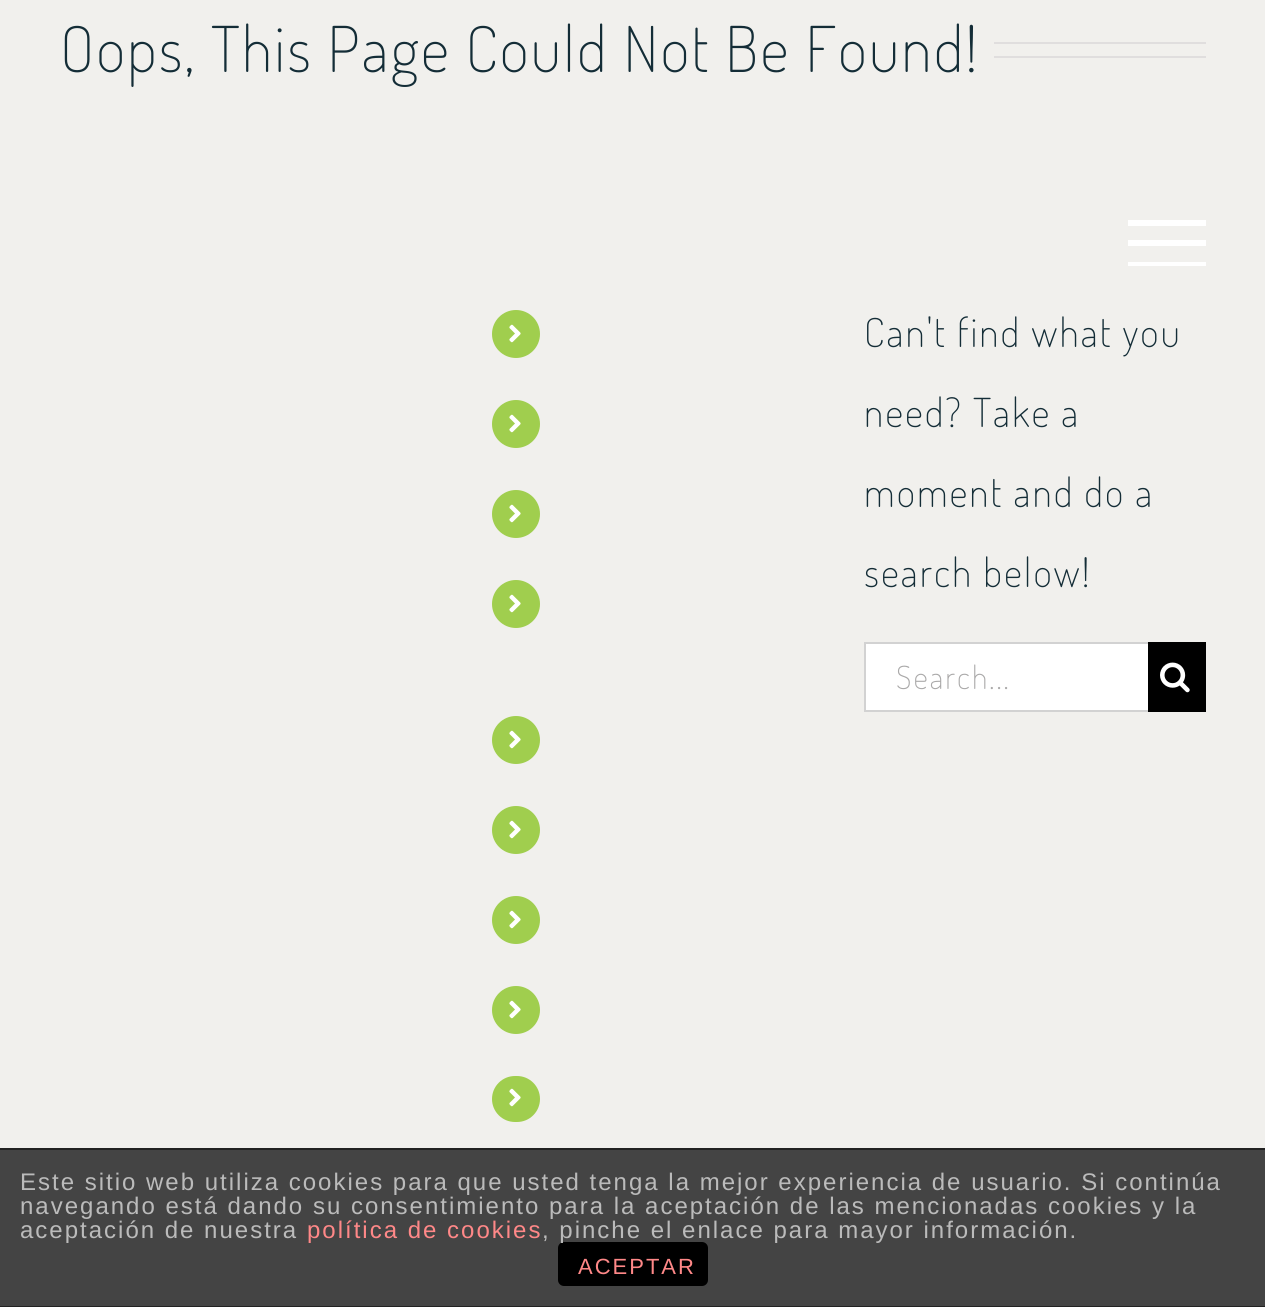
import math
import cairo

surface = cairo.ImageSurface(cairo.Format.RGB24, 1265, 1307)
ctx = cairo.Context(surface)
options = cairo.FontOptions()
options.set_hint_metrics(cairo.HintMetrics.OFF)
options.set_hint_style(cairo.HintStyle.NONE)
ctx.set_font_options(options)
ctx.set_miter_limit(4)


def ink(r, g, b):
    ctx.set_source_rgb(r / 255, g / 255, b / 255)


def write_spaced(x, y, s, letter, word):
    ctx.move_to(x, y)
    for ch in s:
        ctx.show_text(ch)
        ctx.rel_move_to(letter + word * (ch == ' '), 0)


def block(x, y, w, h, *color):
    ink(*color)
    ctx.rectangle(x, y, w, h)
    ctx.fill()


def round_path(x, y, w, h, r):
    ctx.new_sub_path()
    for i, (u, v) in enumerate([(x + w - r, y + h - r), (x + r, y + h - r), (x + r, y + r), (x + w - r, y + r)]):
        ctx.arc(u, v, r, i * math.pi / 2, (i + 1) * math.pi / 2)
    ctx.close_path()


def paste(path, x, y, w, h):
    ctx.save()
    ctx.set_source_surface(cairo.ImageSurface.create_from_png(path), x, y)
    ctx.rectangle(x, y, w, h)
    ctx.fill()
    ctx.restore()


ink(241, 240, 237)
ctx.paint()
ctx.select_font_face("Dosis ExtraLight")
ctx.set_font_size(63.2)
ink(20, 45, 55)
write_spaced(60, 72, "Oops, This Page Could Not Be Found!", 2, 0)
block(994, 42, 212, 2, 224, 222, 222)
block(994, 56, 212, 2, 224, 222, 222)
ink(160, 206, 78)
ctx.new_path()
ctx.arc(516, 334, 24, 0, 2 * math.pi)
ctx.fill()
paste("pic1.png", 509, 324, 12, 19)
ctx.arc(516, 424, 24, 0, 2 * math.pi)
ctx.fill()
paste("pic1.png", 509, 414, 12, 19)
ctx.arc(516, 514, 24, 0, 2 * math.pi)
ctx.fill()
paste("pic1.png", 509, 504, 12, 19)
ctx.arc(516, 604, 24, 0, 2 * math.pi)
ctx.fill()
paste("pic1.png", 509, 594, 12, 19)
ctx.arc(516, 740, 24, 0, 2 * math.pi)
ctx.fill()
paste("pic1.png", 509, 730, 12, 19)
ctx.arc(516, 830, 24, 0, 2 * math.pi)
ctx.fill()
paste("pic1.png", 509, 820, 12, 19)
ctx.arc(516, 920, 24, 0, 2 * math.pi)
ctx.fill()
paste("pic1.png", 509, 910, 12, 19)
ctx.arc(516, 1010, 24, 0, 2 * math.pi)
ctx.fill()
paste("pic1.png", 509, 1000, 12, 19)
round_path(492, 1076, 48, 46, 23)
ctx.fill()
paste("pic1.png", 509, 1088, 12, 19)
ctx.set_font_size(40)
ink(20, 45, 55)
write_spaced(864, 347, "Can't find what you", 2, 0)
write_spaced(864, 427, "need? Take a", 2, 0)
write_spaced(864, 507, "moment and do a", 2, 0)
write_spaced(864, 587, "search below!", 2, 0)
block(866, 644, 282, 66, 255, 255, 255)
block(864, 642, 284, 2, 210, 210, 210)
block(864, 710, 284, 2, 210, 210, 210)
block(864, 642, 2, 70, 210, 210, 210)
ctx.set_font_size(32)
ink(170, 169, 169)
write_spaced(896, 689, "Search...", 2, 0)
block(1148, 642, 58, 70, 0, 0, 0)
paste("pic2.png", 1160, 662, 30, 31)
block(1128, 220, 78, 6, 255, 255, 255)
block(1128, 240, 78, 6, 255, 255, 255)
block(1128, 262, 78, 4, 255, 255, 255)
block(0, 1150, 1265, 156, 68, 68, 68)
block(0, 1148, 1265, 2, 34, 34, 34)
block(0, 1306, 1265, 1, 34, 34, 34)
ctx.select_font_face("Liberation Sans")
ctx.set_font_size(24)
ink(187, 187, 187)
write_spaced(20, 1190, "Este sitio web utiliza cookies para que usted tenga la mejor experiencia de usuario. Si continúa", 2, 0)
write_spaced(20, 1214, "navegando está dando su consentimiento para la aceptación de las mencionadas cookies y la", 2, 0)
write_spaced(20, 1238, "aceptación de nuestra", 2, 0)
ink(255, 136, 136)
write_spaced(307, 1238, "política de cookies", 2, 0)
ink(0, 0, 0)
round_path(558, 1242, 150, 44, 6)
ctx.fill()
ink(187, 187, 187)
write_spaced(542, 1238, ", pinche el enlace para mayor información.", 2, 0)
ctx.set_font_size(22)
ink(255, 136, 136)
write_spaced(578, 1274, "ACEPTAR", 2, 0)
surface.write_to_png("screenshot.png")
